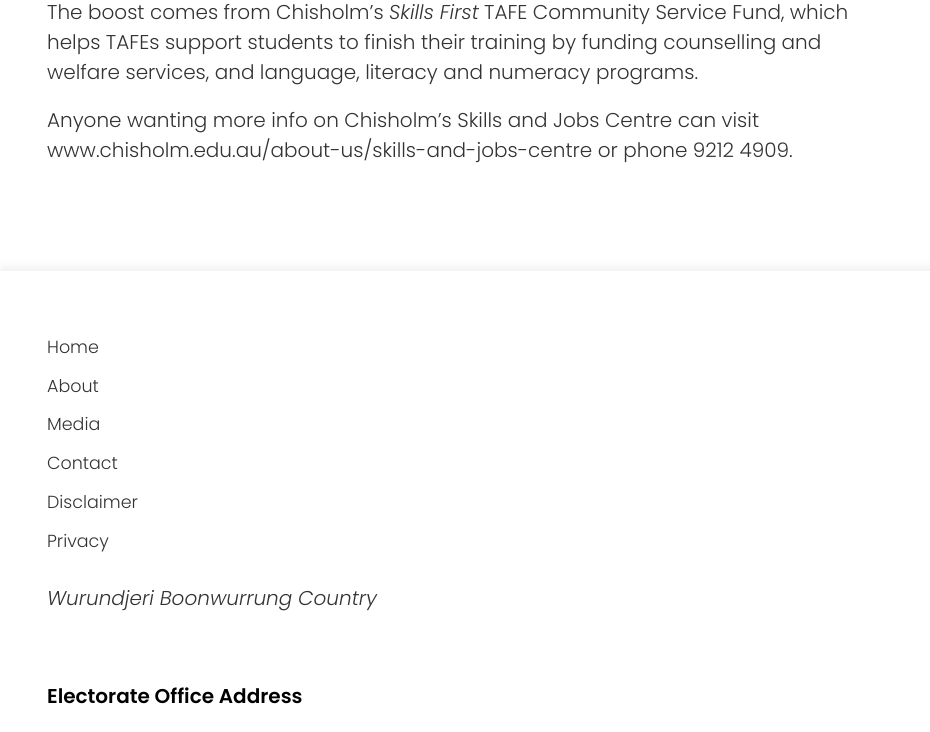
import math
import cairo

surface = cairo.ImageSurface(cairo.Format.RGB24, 930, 732)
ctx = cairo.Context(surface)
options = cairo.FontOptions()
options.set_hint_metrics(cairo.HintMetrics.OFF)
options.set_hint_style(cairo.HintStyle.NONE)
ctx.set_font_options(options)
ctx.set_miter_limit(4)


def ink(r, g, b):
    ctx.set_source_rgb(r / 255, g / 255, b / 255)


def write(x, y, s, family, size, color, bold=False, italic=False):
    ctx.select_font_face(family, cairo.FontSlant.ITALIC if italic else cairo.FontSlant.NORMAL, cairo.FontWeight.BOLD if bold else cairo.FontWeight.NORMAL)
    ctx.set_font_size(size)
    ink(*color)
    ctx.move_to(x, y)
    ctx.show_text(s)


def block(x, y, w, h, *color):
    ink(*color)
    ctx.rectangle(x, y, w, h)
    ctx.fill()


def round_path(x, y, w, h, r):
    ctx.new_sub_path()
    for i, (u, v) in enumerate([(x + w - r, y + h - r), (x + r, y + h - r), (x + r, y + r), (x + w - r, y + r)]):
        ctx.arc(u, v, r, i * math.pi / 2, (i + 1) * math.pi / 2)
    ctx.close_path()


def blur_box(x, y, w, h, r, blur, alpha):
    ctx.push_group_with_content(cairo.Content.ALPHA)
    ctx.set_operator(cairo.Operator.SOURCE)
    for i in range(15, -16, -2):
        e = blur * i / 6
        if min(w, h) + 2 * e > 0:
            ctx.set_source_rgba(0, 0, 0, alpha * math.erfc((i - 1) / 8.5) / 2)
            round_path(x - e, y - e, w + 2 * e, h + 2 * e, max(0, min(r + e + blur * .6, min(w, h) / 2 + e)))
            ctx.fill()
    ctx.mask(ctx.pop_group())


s1 = dict(family="Poppins Light", size=20, color=(51, 51, 51))
s2 = dict(family="Poppins Light", size=20, color=(51, 51, 51), italic=True)
s3 = dict(family="Poppins Light", size=17.5, color=(51, 51, 51))
s4 = dict(family="Poppins SemiBold", size=20, color=(0, 0, 0))

ink(255, 255, 255)
ctx.paint()
write(47, 19, "The boost comes from Chisholm’s", **s1)
write(389, 19, "Skills First", **s2)
write(484, 19, "TAFE Community Service Fund, which", **s1)
write(47, 49, "helps TAFEs support students to finish their training by funding counselling and", **s1)
write(47, 79, "welfare services, and language, literacy and numeracy programs.", **s1)
write(47, 127, "Anyone wanting more info on Chisholm’s Skills and Jobs Centre can visit", **s1)
write(47, 157, "www.chisholm.edu.au/about-us/skills-and-jobs-centre or phone 9212 4909.", **s1)
ink(0, 0, 0)
blur_box(3, 270, 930, 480, 0, 6, 0.1)
block(0, 271, 930, 461, 255, 255, 255)
write(47, 353, "Home", **s3)
write(47, 392, "About", **s3)
write(47, 430, "Media", **s3)
write(47, 469, "Contact", **s3)
write(47, 508, "Disclaimer", **s3)
write(47, 547, "Privacy", **s3)
write(47, 605, "Wurundjeri Boonwurrung Country", **s2)
write(47, 703, "Electorate Office Address", **s4)
surface.write_to_png("screenshot.png")
